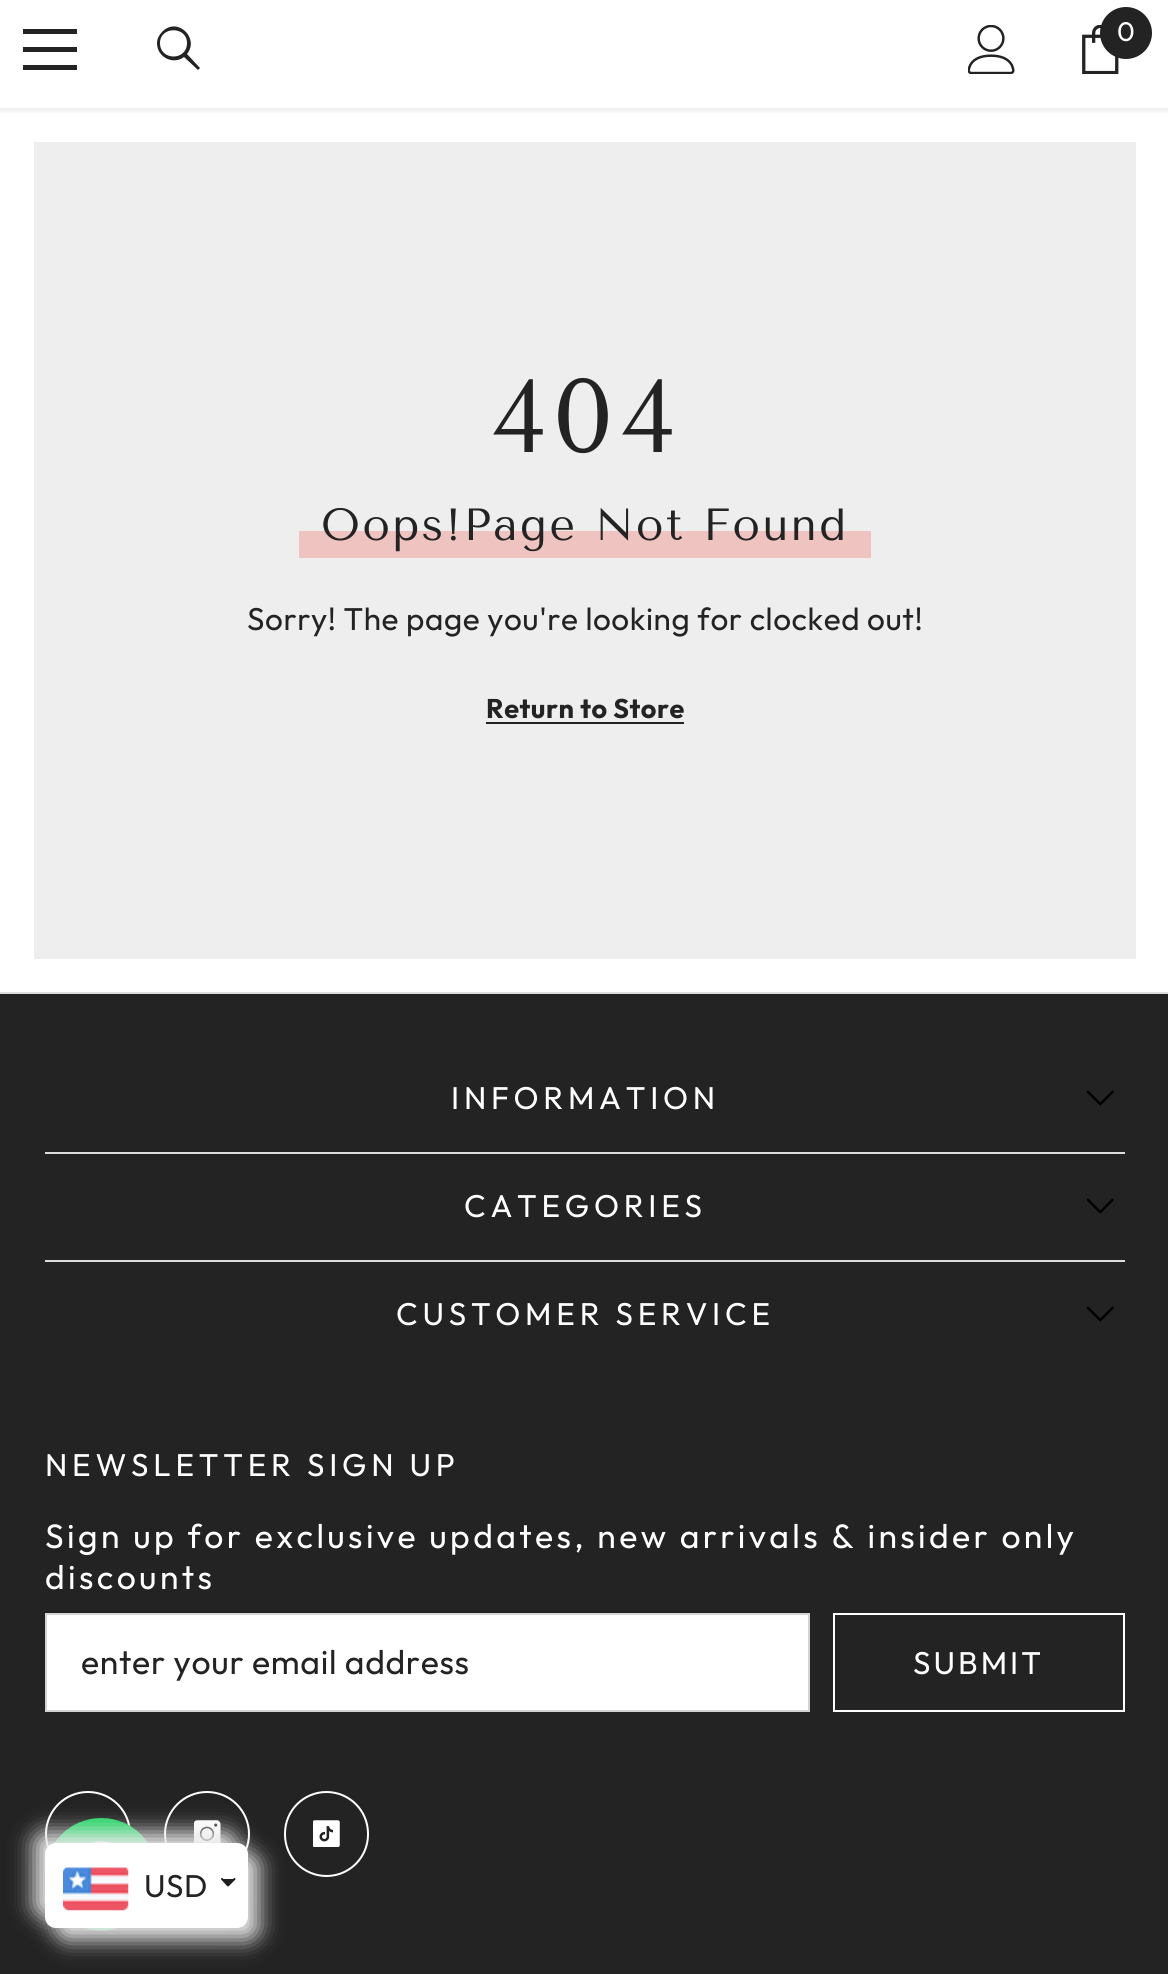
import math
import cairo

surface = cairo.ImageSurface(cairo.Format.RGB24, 1168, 1974)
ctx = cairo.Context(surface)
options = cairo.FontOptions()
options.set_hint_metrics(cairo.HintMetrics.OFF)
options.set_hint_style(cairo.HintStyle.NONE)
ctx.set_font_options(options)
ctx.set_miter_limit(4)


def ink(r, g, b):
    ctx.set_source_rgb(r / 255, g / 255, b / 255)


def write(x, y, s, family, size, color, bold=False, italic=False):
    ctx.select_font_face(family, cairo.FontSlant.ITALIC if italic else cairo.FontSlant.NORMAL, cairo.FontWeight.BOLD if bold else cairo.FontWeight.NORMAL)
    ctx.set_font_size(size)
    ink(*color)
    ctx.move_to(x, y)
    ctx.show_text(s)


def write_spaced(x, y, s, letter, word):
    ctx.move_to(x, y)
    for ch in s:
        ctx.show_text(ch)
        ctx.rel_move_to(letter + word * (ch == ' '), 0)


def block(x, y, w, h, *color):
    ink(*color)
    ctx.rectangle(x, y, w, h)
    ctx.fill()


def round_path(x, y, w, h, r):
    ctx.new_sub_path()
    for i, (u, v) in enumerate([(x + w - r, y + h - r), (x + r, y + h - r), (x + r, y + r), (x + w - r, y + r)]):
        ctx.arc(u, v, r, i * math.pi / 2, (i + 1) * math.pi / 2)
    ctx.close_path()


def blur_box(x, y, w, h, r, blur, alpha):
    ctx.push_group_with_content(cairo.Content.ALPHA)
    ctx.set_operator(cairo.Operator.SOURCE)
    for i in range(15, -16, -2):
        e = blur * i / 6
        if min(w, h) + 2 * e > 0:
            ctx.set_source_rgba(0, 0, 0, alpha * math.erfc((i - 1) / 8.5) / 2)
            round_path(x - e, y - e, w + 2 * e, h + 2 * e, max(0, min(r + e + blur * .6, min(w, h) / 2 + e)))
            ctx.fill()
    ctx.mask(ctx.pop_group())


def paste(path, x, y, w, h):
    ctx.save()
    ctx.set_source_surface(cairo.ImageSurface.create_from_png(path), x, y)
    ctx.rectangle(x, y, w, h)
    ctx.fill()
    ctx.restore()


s1 = dict(family="Outfit", size=27, color=(255, 255, 255))

ink(255, 255, 255)
ctx.paint()
ctx.save()
ctx.rectangle(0, 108, 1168, 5)
ctx.clip()
ink(0, 0, 0)
blur_box(0, -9, 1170, 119, 0, 3.5, 0.1)
ctx.restore()
block(23, 47, 54, 5, 35, 35, 35)
block(23, 29, 54, 5, 35, 35, 35)
block(23, 65, 54, 5, 35, 35, 35)
ctx.new_path()
ctx.move_to(157, 43)
ctx.curve_to(157, 58, 174, 65, 184, 57)
ctx.line_to(198, 70)
ctx.line_to(200, 68)
ctx.line_to(187, 54)
ctx.curve_to(200, 38, 177, 16, 162, 32)
ctx.curve_to(159, 35, 157, 39, 157, 43)
ctx.close_path()
ctx.move_to(160, 43)
ctx.curve_to(160, 26, 187, 26, 187, 43)
ctx.curve_to(187, 61, 160, 61, 160, 43)
ctx.close_path()
ctx.fill()
paste("pic1.png", 968, 25, 47, 49)
paste("pic2.png", 1082, 25, 37, 49)
ctx.arc(1126, 33, 26, 0, 2 * math.pi)
ctx.fill()
write(1117, 41, "0", **s1)
block(34, 142, 1102, 817, 238, 238, 238)
ctx.select_font_face("Tenor Sans")
ctx.set_font_size(104)
ink(35, 35, 35)
write_spaced(490, 452, "404", 5, 0)
block(299, 531, 572, 27, 239, 195, 192)
ctx.set_font_size(45)
ink(35, 35, 35)
write_spaced(321, 540, "Oops!Page Not Found", 2.25, 0)
ctx.select_font_face("Outfit")
ctx.set_font_size(31.5)
write_spaced(247, 630, "Sorry! The page you're looking for clocked out!", 0.55, 0)
ctx.select_font_face("Outfit", cairo.FontSlant.NORMAL, cairo.FontWeight.BOLD)
ctx.set_font_size(27)
write_spaced(486, 718, "Return to Store", 0.55, 0)
block(486, 722, 198, 2, 35, 35, 35)
block(0, 994, 1168, 980, 35, 35, 35)
block(0, 992, 1168, 2, 221, 221, 221)
block(45, 1152, 1080, 2, 221, 221, 221)
ctx.select_font_face("Outfit")
ctx.set_font_size(31.5)
ink(255, 255, 255)
write_spaced(451, 1109, "INFORMATION", 4.75, 0)
paste("pic3.png", 1087, 1090, 27, 16)
block(45, 1260, 1080, 2, 221, 221, 221)
ink(255, 255, 255)
write_spaced(464, 1217, "CATEGORIES", 4.75, 0)
paste("pic3.png", 1087, 1198, 27, 16)
write_spaced(396, 1325, "CUSTOMER SERVICE", 4.75, 0)
paste("pic3.png", 1087, 1306, 27, 16)
write_spaced(45, 1476, "NEWSLETTER SIGN UP", 4.75, 0)
ctx.set_font_size(33.75)
write_spaced(45, 1548, "Sign up for exclusive updates, new arrivals & insider only", 3.38, 0)
write_spaced(45, 1589, "discounts", 3.38, 0)
ctx.rectangle(46, 1614, 763, 97)
ctx.fill_preserve()
ink(211, 211, 211)
ctx.stroke()
ink(35, 35, 35)
write_spaced(81, 1674, "enter your email address", 0.7, 0)
ctx.rectangle(834, 1614, 290, 97)
ink(255, 255, 255)
ctx.stroke()
ctx.set_font_size(31.5)
write_spaced(913, 1674, "SUBMIT", 3, 0)
ctx.new_path()
ctx.arc(88, 1834, 42, 0, 2 * math.pi)
ctx.stroke()
ctx.arc(207, 1834, 42, 0, 2 * math.pi)
ctx.stroke()
paste("pic4.png", 194, 1820, 27, 23)
round_path(285, 1792, 83, 84, 41.5)
ctx.stroke()
paste("pic5.png", 313, 1820, 27, 27)
paste("pic6.png", 54, 1818, 94, 113)
ink(232, 232, 232)
blur_box(34, 1832, 202, 85, 11, 11, 1)
blur_box(56, 1854, 203, 86, 11, 11, 1)
ink(255, 255, 255)
round_path(45, 1843, 203, 85, 11)
ctx.fill()
paste("pic7.png", 63, 1867, 66, 44)
ink(35, 35, 35)
write_spaced(144, 1897, "USD", 0.55, 0)
ink(30, 30, 30)
ctx.new_path()
ctx.move_to(222, 1879)
ctx.line_to(228, 1885.5)
ctx.line_to(234.5, 1879)
ctx.fill_preserve()
ctx.set_line_cap(cairo.LineCap.ROUND)
ctx.set_line_join(cairo.LineJoin.ROUND)
ctx.stroke()
surface.write_to_png("screenshot.png")
